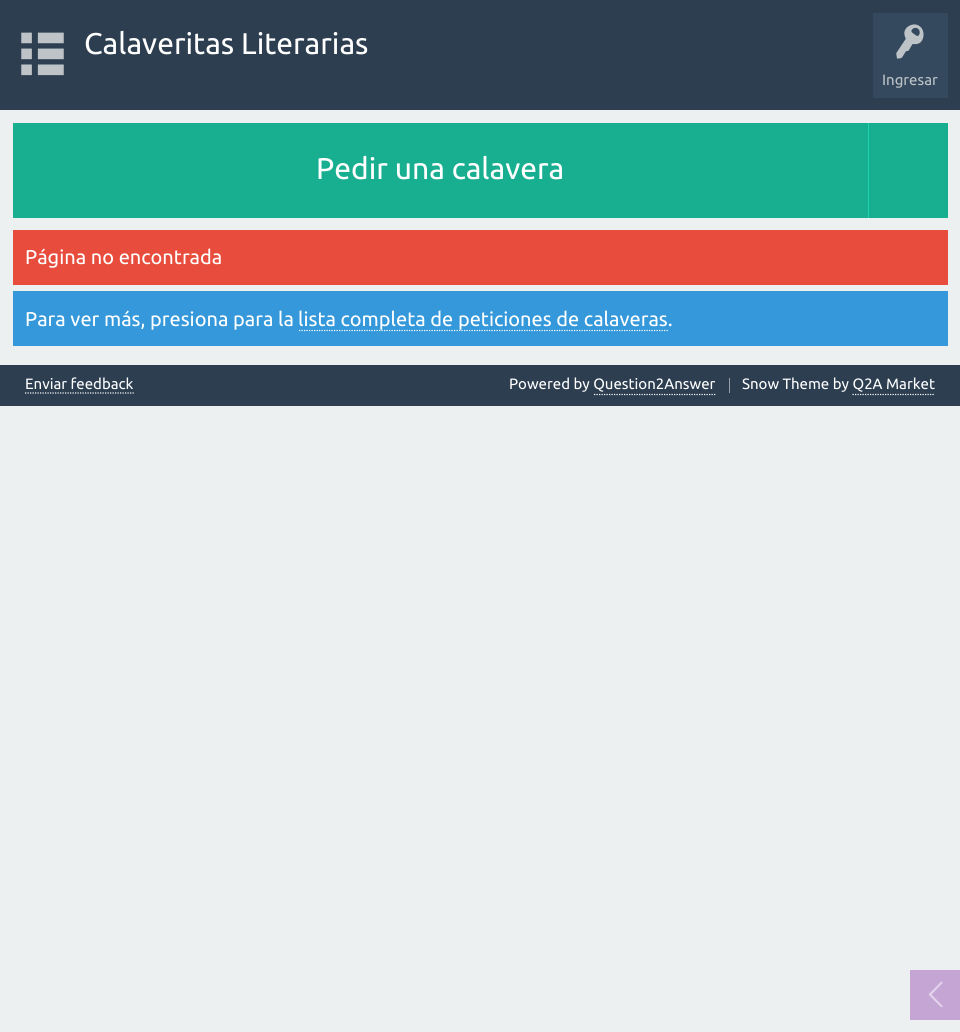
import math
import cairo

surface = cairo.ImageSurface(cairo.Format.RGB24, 960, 1032)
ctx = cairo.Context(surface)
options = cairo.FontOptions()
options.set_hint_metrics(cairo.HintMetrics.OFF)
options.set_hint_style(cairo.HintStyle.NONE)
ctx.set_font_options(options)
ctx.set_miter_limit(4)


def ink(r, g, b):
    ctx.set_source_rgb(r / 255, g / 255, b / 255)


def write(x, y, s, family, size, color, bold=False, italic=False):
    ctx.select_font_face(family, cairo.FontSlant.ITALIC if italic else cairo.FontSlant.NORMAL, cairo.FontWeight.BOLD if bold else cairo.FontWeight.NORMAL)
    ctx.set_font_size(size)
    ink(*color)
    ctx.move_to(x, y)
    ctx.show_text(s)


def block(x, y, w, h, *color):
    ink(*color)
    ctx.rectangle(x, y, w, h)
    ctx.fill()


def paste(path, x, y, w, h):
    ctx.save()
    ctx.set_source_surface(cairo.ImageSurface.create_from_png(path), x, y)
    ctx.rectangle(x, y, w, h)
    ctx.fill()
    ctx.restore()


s1 = dict(family="Ubuntu", size=30, color=(255, 255, 255))
s2 = dict(family="Ubuntu", size=15, color=(189, 195, 199))
s3 = dict(family="Ubuntu", size=20, color=(255, 255, 255))
s4 = dict(family="Ubuntu", size=15, color=(255, 255, 255))

ink(236, 240, 241)
ctx.paint()
block(0, 0, 960, 110, 44, 62, 80)
paste("pic1.png", 21, 32, 43, 44)
write(84, 54, "Calaveritas Literarias", **s1)
block(873, 13, 75, 85, 52, 73, 94)
paste("pic2.png", 896, 24, 28, 35)
write(882, 85, "Ingresar", **s2)
block(13, 123, 855, 95, 24, 175, 145)
write(316, 179, "Pedir una calavera", **s1)
block(869, 123, 79, 95, 24, 175, 145)
block(868, 123, 1, 95, 29, 210, 175)
block(13, 230, 935, 55, 231, 76, 60)
write(25, 264, "Página no encontrada", **s3)
block(13, 291, 935, 55, 52, 152, 219)
write(25, 326, "Para ver más, presiona para la", **s3)
ctx.new_path()
ctx.move_to(299, 330.5)
ctx.line_to(669, 330.5)
ctx.set_line_width(1.2)
ctx.set_dash([1.25, 1.25])
ctx.stroke()
write(298, 326, "lista completa de peticiones de calaveras.", **s3)
block(910, 970, 50, 50, 196, 165, 212)
paste("pic3.png", 928, 981, 15, 27)
block(0, 365, 960, 41, 44, 62, 80)
ctx.new_path()
ctx.move_to(25, 393)
ctx.line_to(134, 393)
ink(255, 255, 255)
ctx.stroke()
write(25, 389, "Enviar feedback", **s4)
block(729, 378, 1, 15, 150, 159, 168)
write(509, 389, "Powered by Question2Answer", **s4)
ctx.new_path()
ctx.move_to(594, 394.5)
ctx.line_to(716, 394.5)
ctx.stroke()
write(742, 389, "Snow Theme by Q2A Market", **s4)
ctx.new_path()
ctx.move_to(852.5, 394.5)
ctx.line_to(935, 394.5)
ctx.stroke()
surface.write_to_png("screenshot.png")
